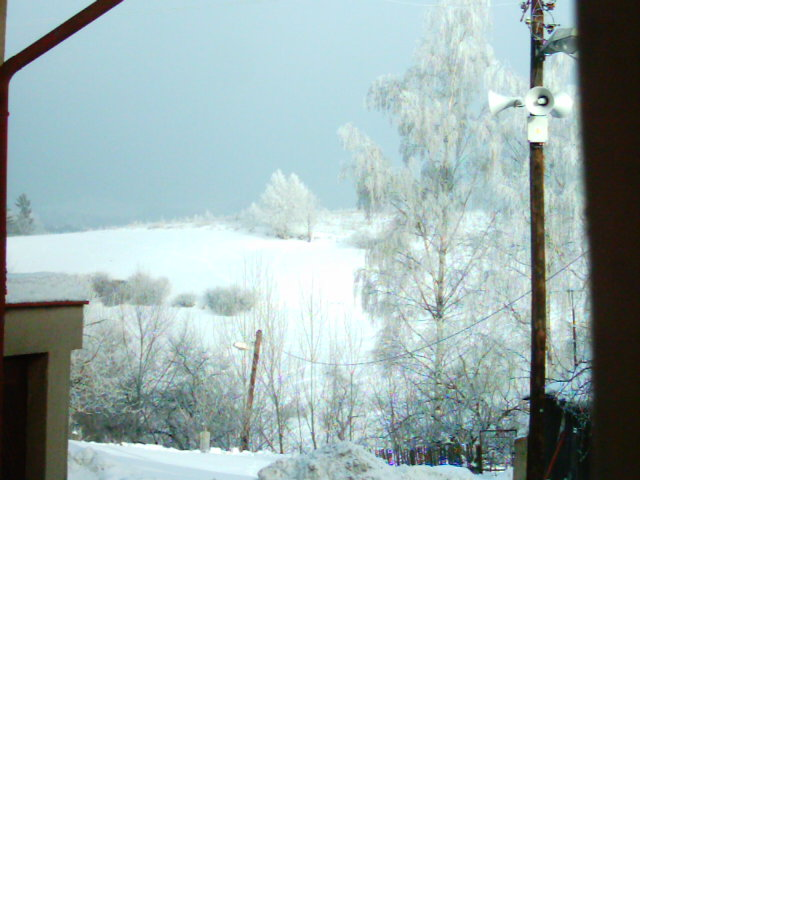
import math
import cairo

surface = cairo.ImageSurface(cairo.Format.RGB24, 790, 904)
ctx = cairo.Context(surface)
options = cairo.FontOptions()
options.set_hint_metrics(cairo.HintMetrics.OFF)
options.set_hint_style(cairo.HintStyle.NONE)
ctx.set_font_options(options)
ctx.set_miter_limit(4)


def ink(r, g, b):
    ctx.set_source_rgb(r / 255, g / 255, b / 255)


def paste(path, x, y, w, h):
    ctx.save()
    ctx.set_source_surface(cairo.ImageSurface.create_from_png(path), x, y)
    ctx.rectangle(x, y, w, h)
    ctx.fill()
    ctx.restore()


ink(255, 255, 255)
ctx.paint()
paste("pic1.png", 0, 0, 640, 480)
surface.write_to_png("screenshot.png")
